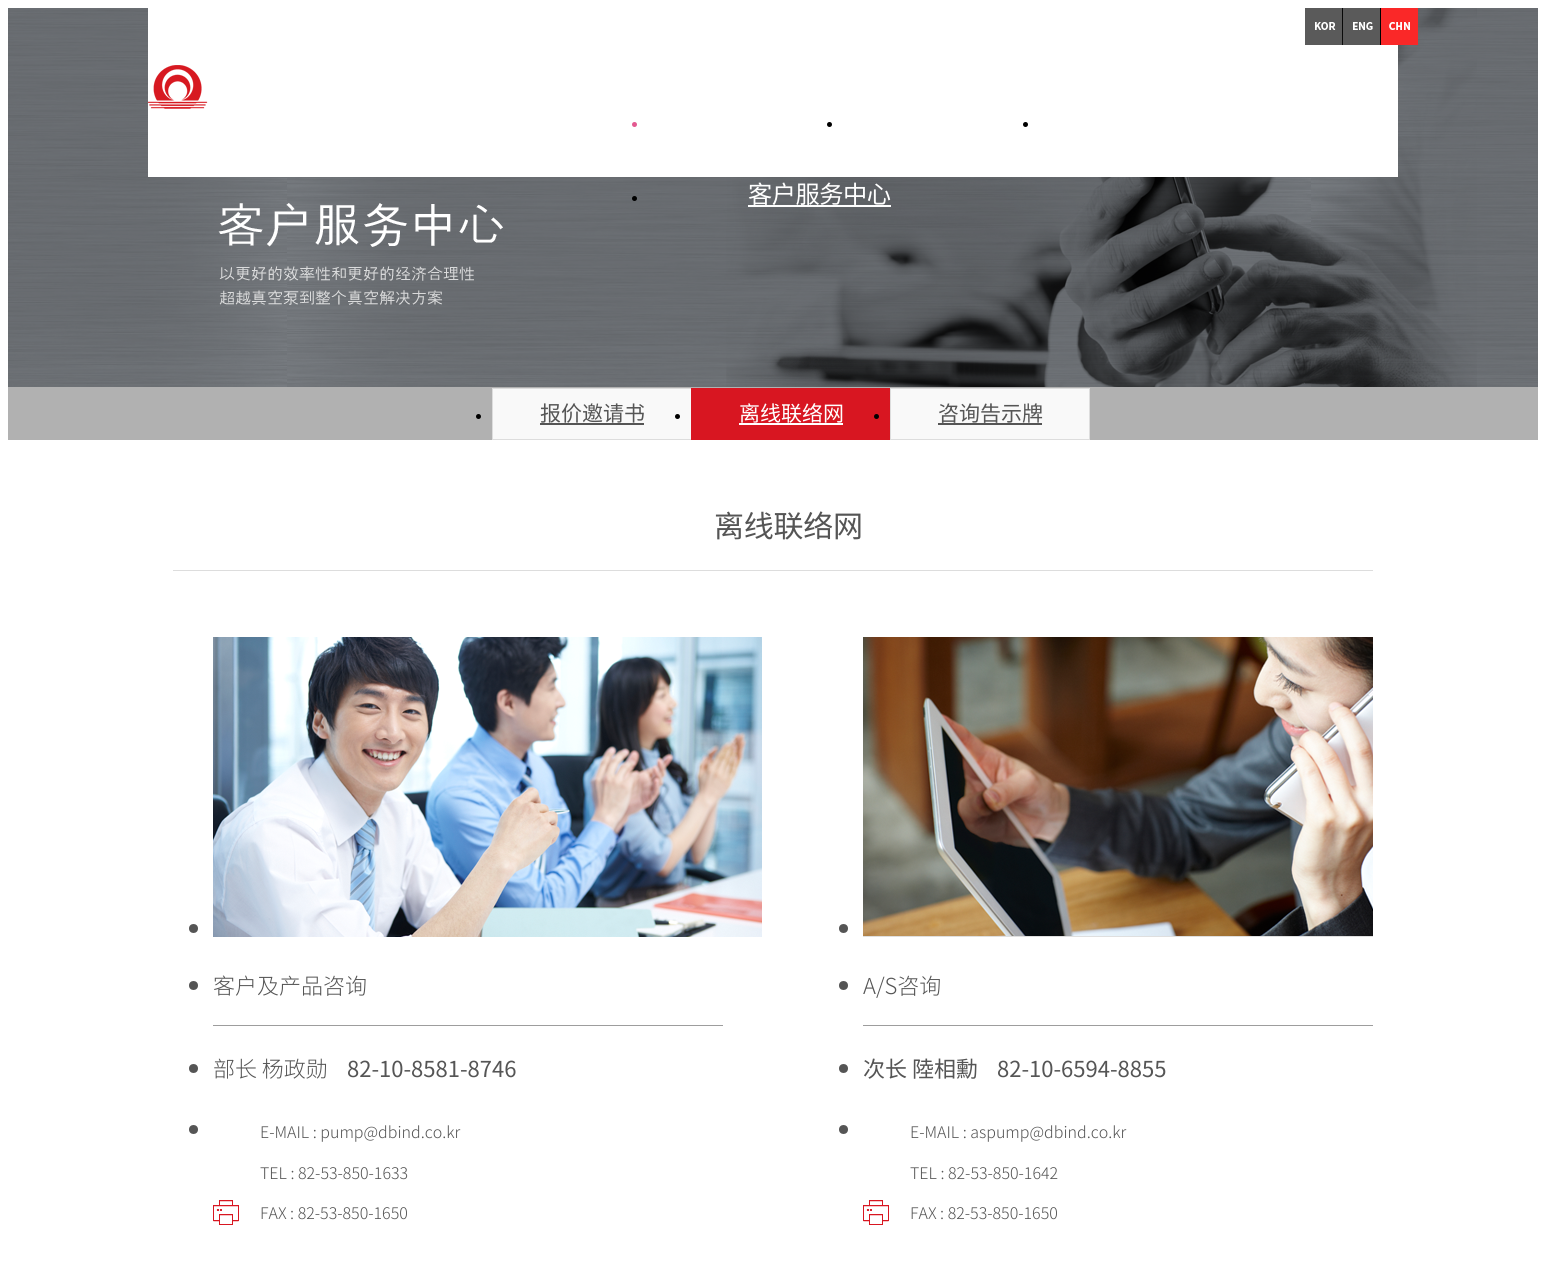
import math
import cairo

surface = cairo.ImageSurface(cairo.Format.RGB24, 1546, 1261)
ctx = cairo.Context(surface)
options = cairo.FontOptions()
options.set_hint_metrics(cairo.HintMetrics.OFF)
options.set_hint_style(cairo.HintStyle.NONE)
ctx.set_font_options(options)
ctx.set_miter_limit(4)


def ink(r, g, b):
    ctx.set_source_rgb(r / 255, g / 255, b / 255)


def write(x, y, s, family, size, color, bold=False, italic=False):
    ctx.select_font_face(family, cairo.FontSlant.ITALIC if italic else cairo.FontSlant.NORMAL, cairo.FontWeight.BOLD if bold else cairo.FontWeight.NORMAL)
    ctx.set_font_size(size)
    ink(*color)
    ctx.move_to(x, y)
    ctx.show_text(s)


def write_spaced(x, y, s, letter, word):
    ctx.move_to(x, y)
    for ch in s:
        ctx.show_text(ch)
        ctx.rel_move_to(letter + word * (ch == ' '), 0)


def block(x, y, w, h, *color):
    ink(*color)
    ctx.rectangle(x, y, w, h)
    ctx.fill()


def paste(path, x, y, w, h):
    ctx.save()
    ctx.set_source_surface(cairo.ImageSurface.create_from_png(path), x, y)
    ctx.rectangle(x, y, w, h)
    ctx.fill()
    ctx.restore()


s1 = dict(family="Noto Sans CJK SC", size=21, color=(85, 85, 85))
s2 = dict(family="Noto Sans CJK SC", size=21, color=(255, 255, 255))
s3 = dict(family="Noto Sans SC Light", size=22, color=(85, 85, 85))
s4 = dict(family="Noto Sans SC", size=22, color=(85, 85, 85))
s5 = dict(family="Noto Sans SC Light", size=16, color=(85, 85, 85))
s6 = dict(family="Noto Sans CJK SC", size=22, color=(85, 85, 85))

ink(255, 255, 255)
ctx.paint()
paste("pic1.png", 8, 8, 1530, 432)
block(148, 8, 1250, 169, 255, 255, 255)
paste("pic2.png", 1305, 8, 38, 37)
paste("pic3.png", 1343, 8, 38, 37)
paste("pic4.png", 1381, 8, 37, 37)
paste("pic5.png", 148, 65, 60, 44)
ink(227, 89, 144)
ctx.arc(634.5, 124.5, 2.5, 0, 2 * math.pi)
ctx.fill()
ink(0, 0, 0)
ctx.arc(829.5, 124.5, 2.5, 0, 2 * math.pi)
ctx.fill()
ctx.arc(1025.5, 124.5, 2.5, 0, 2 * math.pi)
ctx.fill()
ctx.arc(634.5, 198.5, 2.5, 0, 2 * math.pi)
ctx.fill()
block(748, 205, 143, 2, 255, 255, 255)
ctx.select_font_face("Noto Sans CJK SC")
ctx.set_font_size(24.25)
write_spaced(748, 203, "客户服务中心", -0.5, 0)
ink(0, 0, 0)
ctx.new_path()
ctx.arc(478.5, 416.5, 2.5, 0, 2 * math.pi)
ctx.fill()
ink(249, 249, 249)
ctx.rectangle(492.5, 388.5, 199, 51)
ctx.fill_preserve()
ink(221, 221, 221)
ctx.set_line_width(1)
ctx.stroke()
write(540, 421, "报价邀请书", **s1)
block(540, 423, 104, 2, 85, 85, 85)
ink(0, 0, 0)
ctx.new_path()
ctx.arc(677.5, 416.5, 2.5, 0, 2 * math.pi)
ctx.fill()
block(691, 388, 199, 52, 216, 22, 33)
write(739, 421, "离线联络网", **s2)
block(739, 423, 104, 2, 255, 255, 255)
ink(0, 0, 0)
ctx.new_path()
ctx.arc(876.5, 416.5, 2.5, 0, 2 * math.pi)
ctx.fill()
ink(249, 249, 249)
ctx.rectangle(890.5, 388.5, 199, 51)
ctx.fill_preserve()
ink(221, 221, 221)
ctx.stroke()
write(938, 421, "咨询告示牌", **s1)
block(938, 423, 104, 2, 85, 85, 85)
block(173, 570, 1200, 1, 221, 221, 221)
ctx.set_font_size(30)
ink(85, 85, 85)
write_spaced(714, 537, "离线联络网", -0.25, 0)
ctx.new_path()
ctx.arc(193.5, 928.5, 4.5, 0, 2 * math.pi)
ctx.fill()
paste("pic6.png", 213, 637, 549, 300)
block(213, 1025, 510, 1, 157, 157, 157)
ink(85, 85, 85)
ctx.arc(193.5, 985.5, 4.5, 0, 2 * math.pi)
ctx.fill()
write(213, 994, "客户及产品咨询", **s3)
ctx.new_path()
ctx.arc(193.5, 1068.5, 4.5, 0, 2 * math.pi)
ctx.fill()
write(213, 1077, "部长 杨政勋", **s3)
write(347, 1077, "82-10-8581-8746", **s4)
ctx.new_path()
ctx.arc(193.5, 1129.5, 4.5, 0, 2 * math.pi)
ctx.fill()
write(260, 1138, "E-MAIL : pump@dbind.co.kr", **s5)
write(260, 1179, "TEL : 82-53-850-1633", **s5)
paste("pic7.png", 213, 1200, 26, 25)
write(260, 1219, "FAX : 82-53-850-1650", **s5)
ctx.new_path()
ctx.arc(843.5, 928.5, 4.5, 0, 2 * math.pi)
ctx.fill()
paste("pic8.png", 863, 637, 510, 300)
block(863, 1025, 510, 1, 157, 157, 157)
ink(85, 85, 85)
ctx.arc(843.5, 985.5, 4.5, 0, 2 * math.pi)
ctx.fill()
write(863, 994, "A/S咨询", **s3)
ctx.new_path()
ctx.arc(843.5, 1068.5, 4.5, 0, 2 * math.pi)
ctx.fill()
write(863, 1077, "次长 陸相勳", **s6)
write(997, 1077, "82-10-6594-8855", **s4)
ctx.new_path()
ctx.arc(843.5, 1129.5, 4.5, 0, 2 * math.pi)
ctx.fill()
write(910, 1138, "E-MAIL : aspump@dbind.co.kr", **s5)
write(910, 1179, "TEL : 82-53-850-1642", **s5)
paste("pic7.png", 863, 1200, 26, 25)
write(910, 1219, "FAX : 82-53-850-1650", **s5)
surface.write_to_png("screenshot.png")
